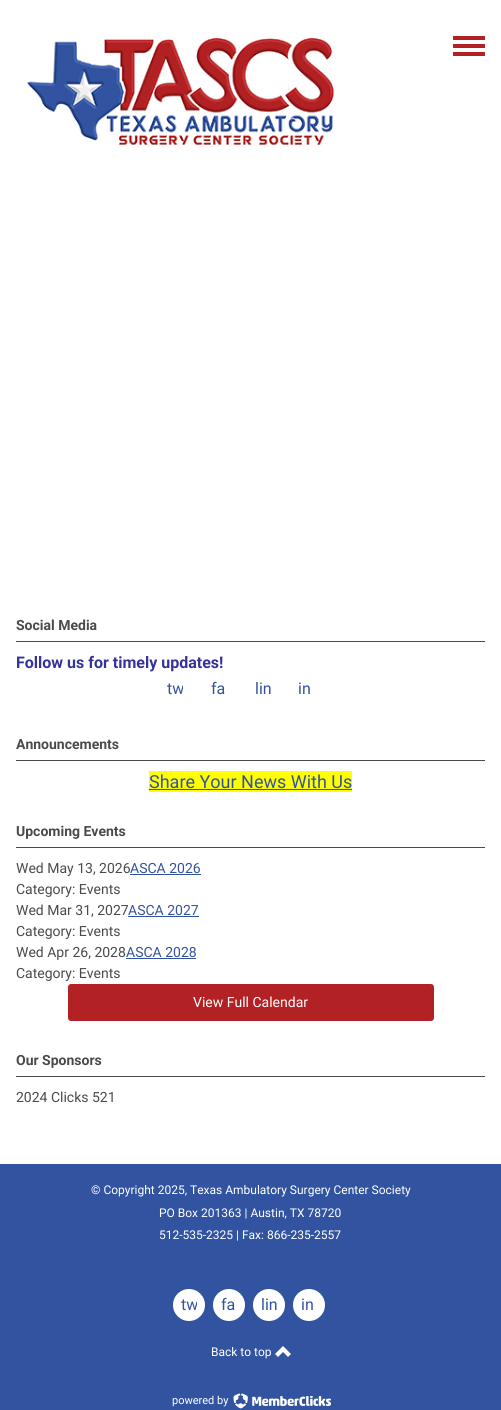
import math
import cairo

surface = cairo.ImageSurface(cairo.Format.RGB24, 501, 1410)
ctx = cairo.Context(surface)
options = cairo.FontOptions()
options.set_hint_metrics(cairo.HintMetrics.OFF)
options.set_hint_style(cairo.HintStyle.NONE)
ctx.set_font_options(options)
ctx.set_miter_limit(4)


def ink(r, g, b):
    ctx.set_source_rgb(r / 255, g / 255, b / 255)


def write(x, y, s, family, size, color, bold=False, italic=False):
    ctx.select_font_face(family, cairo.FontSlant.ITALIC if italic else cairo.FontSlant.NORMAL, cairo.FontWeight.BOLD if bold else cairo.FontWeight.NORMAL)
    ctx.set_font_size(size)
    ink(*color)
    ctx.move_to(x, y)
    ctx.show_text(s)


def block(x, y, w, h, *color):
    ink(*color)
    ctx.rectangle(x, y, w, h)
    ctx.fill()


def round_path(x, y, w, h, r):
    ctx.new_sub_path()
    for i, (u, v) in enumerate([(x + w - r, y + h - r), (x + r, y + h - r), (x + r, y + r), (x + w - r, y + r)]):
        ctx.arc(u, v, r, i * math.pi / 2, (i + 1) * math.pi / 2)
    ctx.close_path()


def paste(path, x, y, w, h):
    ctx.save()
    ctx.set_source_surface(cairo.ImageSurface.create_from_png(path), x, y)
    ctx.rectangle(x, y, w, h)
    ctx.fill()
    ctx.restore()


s1 = dict(family="Roboto", size=14, color=(74, 74, 74), bold=True)
s2 = dict(family="Roboto", size=16, color=(51, 51, 153), bold=True)
s3 = dict(family="Roboto", size=16, color=(50, 83, 160))
s4 = dict(family="Roboto", size=18, color=(50, 83, 160))
s5 = dict(family="Roboto", size=14, color=(74, 74, 74))
s6 = dict(family="Roboto", size=14, color=(50, 83, 160))
s7 = dict(family="Roboto", size=14, color=(255, 255, 255))
s8 = dict(family="Roboto", size=12, color=(255, 255, 255))
s9 = dict(family="Roboto", size=11, color=(255, 255, 255))

ink(255, 255, 255)
ctx.paint()
paste("pic1.png", 27, 37, 307, 109)
paste("pic2.png", 453, 36, 32, 20)
block(16, 641, 469, 1, 74, 74, 74)
write(16, 630, "Social Media", **s1)
write(16, 668, "Follow us for timely updates!", **s2)
ctx.save()
ctx.rectangle(167, 681, 16, 16)
ctx.clip()
write(167, 694, "tw", **s3)
ctx.restore()
write(211, 694, "fa", **s3)
write(255, 694, "lin", **s3)
write(298, 694, "in", **s3)
block(16, 760, 469, 1, 74, 74, 74)
write(16, 749, "Announcements", **s1)
block(149, 771, 203, 21, 255, 255, 0)
write(149, 788, "Share Your News With Us", **s4)
block(149, 789, 203, 1, 50, 83, 160)
block(16, 847, 469, 1, 74, 74, 74)
write(16, 836, "Upcoming Events", **s1)
write(16, 873, "Wed May 13, 2026", **s5)
write(130, 873, "ASCA 2026", **s6)
block(130, 874, 71, 1, 50, 83, 160)
write(16, 894, "Category: Events", **s5)
write(16, 915, "Wed Mar 31, 2027", **s5)
write(128, 915, "ASCA 2027", **s6)
block(128, 916, 71, 1, 50, 83, 160)
write(16, 936, "Category: Events", **s5)
write(16, 957, "Wed Apr 26, 2028", **s5)
write(126, 957, "ASCA 2028", **s6)
block(126, 958, 70, 1, 50, 83, 160)
write(16, 978, "Category: Events", **s5)
ink(178, 33, 36)
round_path(68, 984, 366, 37, 3)
ctx.fill()
write(193, 1007, "View Full Calendar", **s7)
block(16, 1076, 469, 1, 74, 74, 74)
write(16, 1065, "Our Sponsors", **s1)
write(16, 1102, "2024 Clicks 521", **s5)
block(0, 1164, 501, 246, 50, 83, 160)
write(91, 1194, "© Copyright 2025, Texas Ambulatory Surgery Center Society", **s8)
write(159, 1217, "PO Box 201363 | Austin, TX 78720", **s8)
write(159, 1239, "512-535-2325 | Fax: 866-235-2557", **s8)
ctx.new_path()
ctx.arc(189, 1305, 16, 0, 2 * math.pi)
ctx.fill()
ctx.save()
ctx.rectangle(181, 1297, 16, 16)
ctx.clip()
write(181, 1310, "tw", **s3)
ctx.restore()
ctx.new_path()
ctx.arc(229, 1305, 16, 0, 2 * math.pi)
ctx.fill()
write(221, 1310, "fa", **s3)
ink(255, 255, 255)
ctx.new_path()
ctx.arc(269, 1305, 16, 0, 2 * math.pi)
ctx.fill()
write(261, 1310, "lin", **s3)
ink(255, 255, 255)
ctx.new_path()
ctx.arc(309, 1305, 16, 0, 2 * math.pi)
ctx.fill()
write(301, 1310, "in", **s3)
write(211, 1356, "Back to top", **s8)
paste("pic3.png", 275, 1346, 16, 11)
write(172, 1404, "powered by", **s9)
paste("pic4.png", 233, 1393, 15, 16)
paste("pic5.png", 252, 1395, 79, 11)
surface.write_to_png("screenshot.png")
